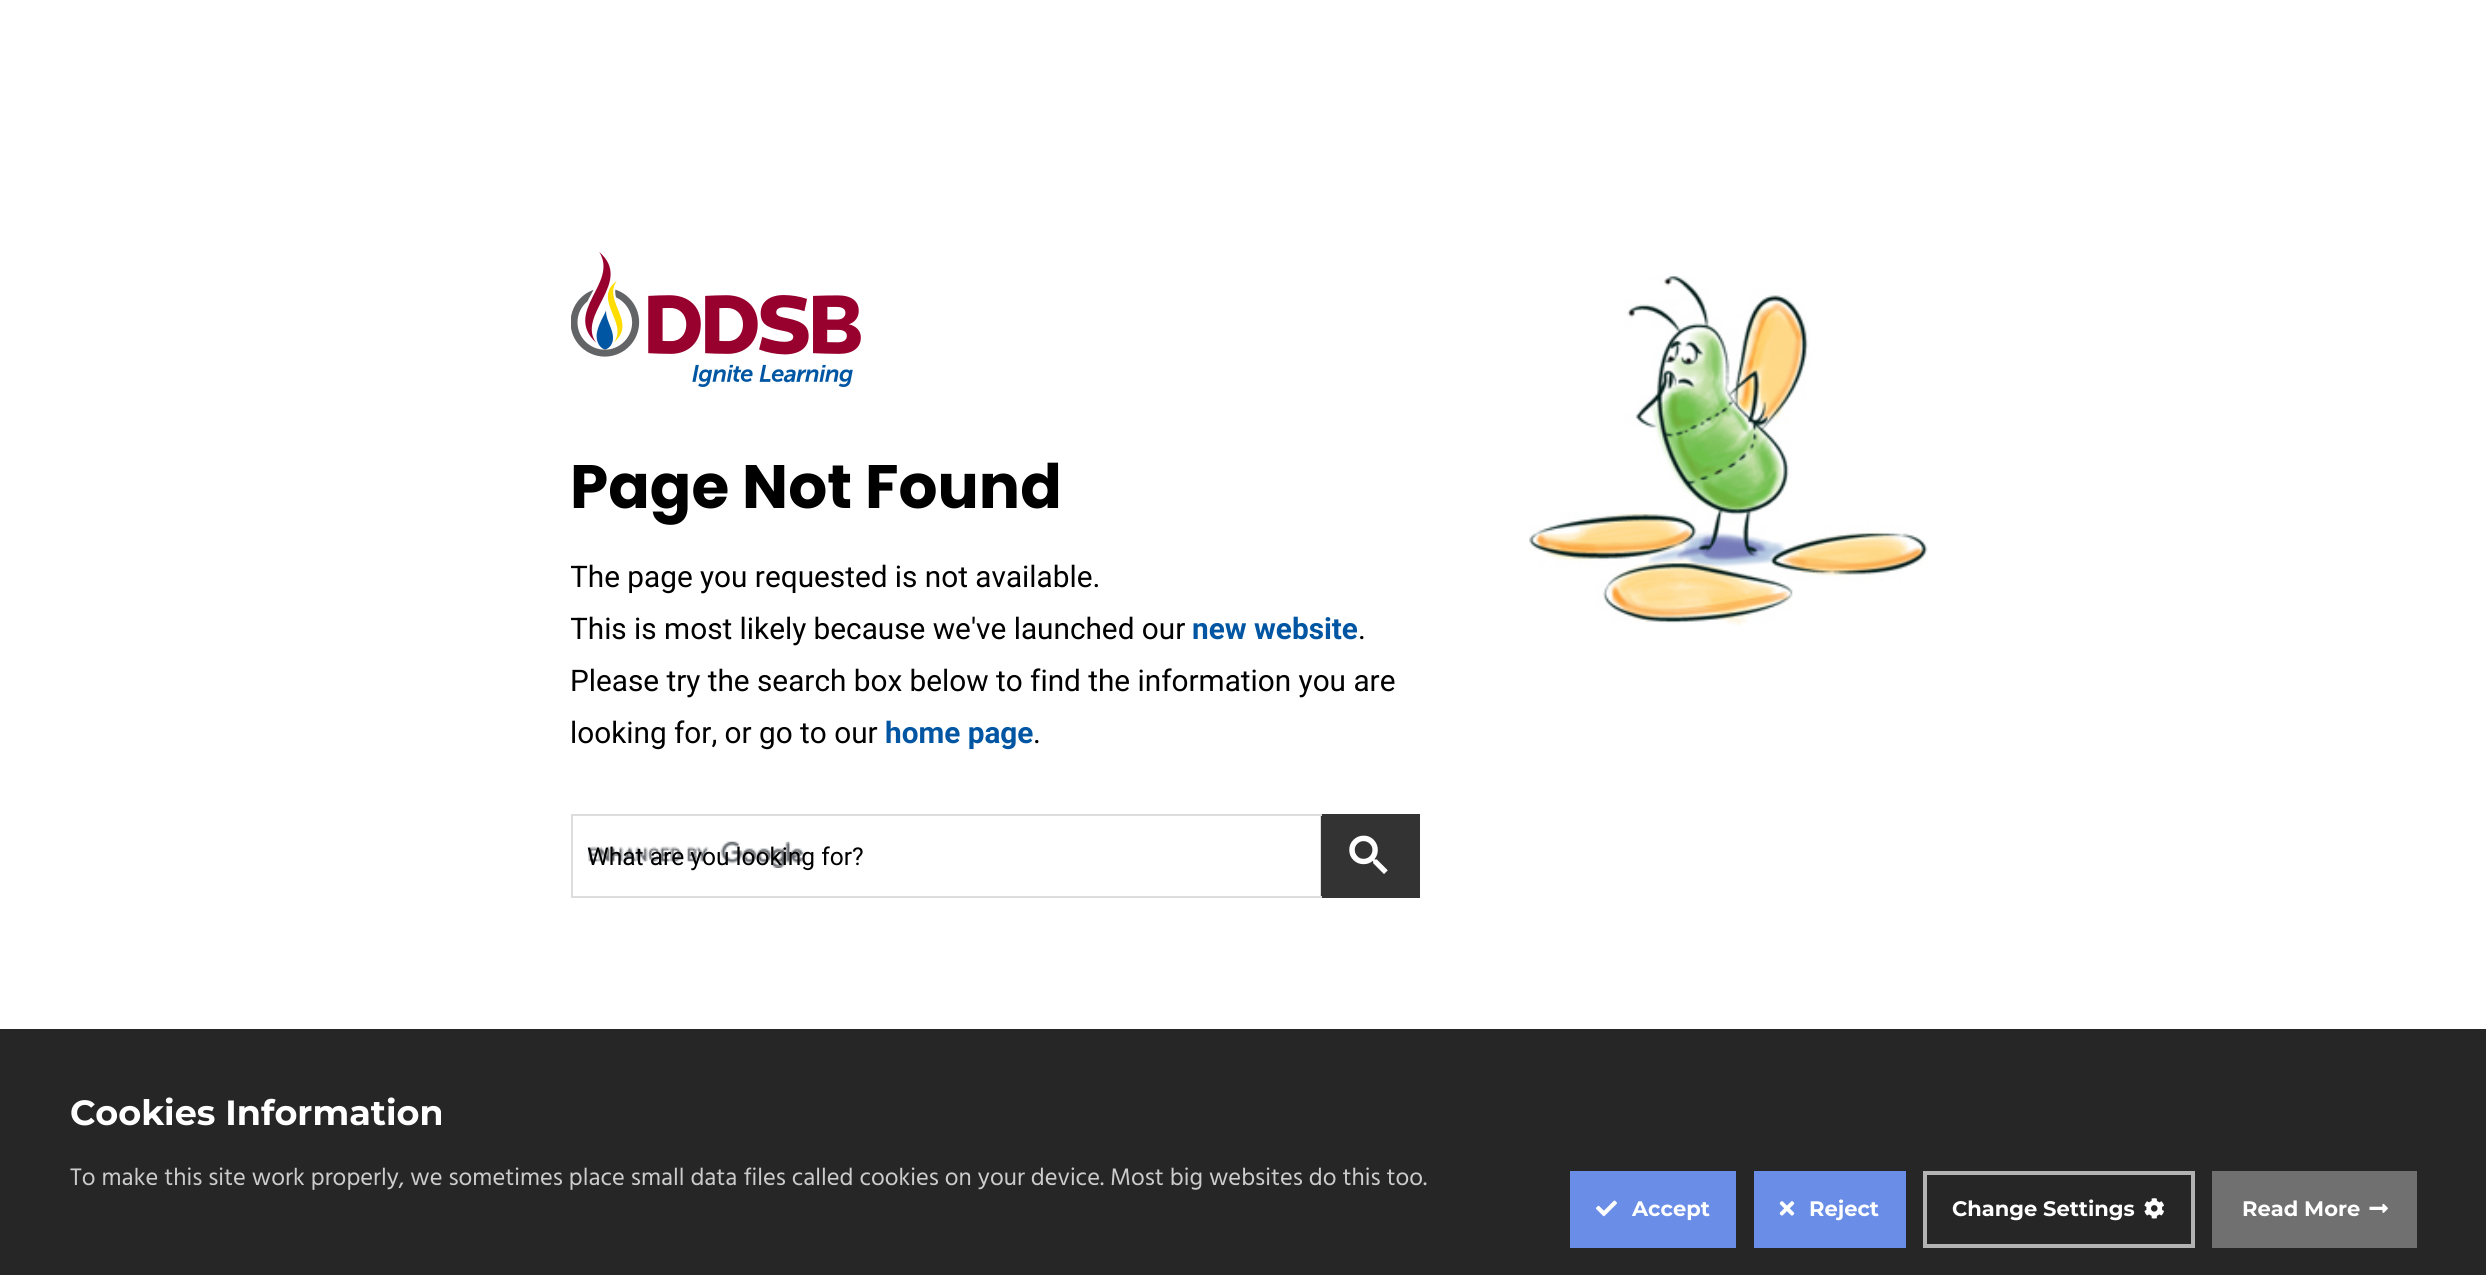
import math
import cairo

surface = cairo.ImageSurface(cairo.Format.RGB24, 2486, 1275)
ctx = cairo.Context(surface)
options = cairo.FontOptions()
options.set_hint_metrics(cairo.HintMetrics.OFF)
options.set_hint_style(cairo.HintStyle.NONE)
ctx.set_font_options(options)
ctx.set_miter_limit(4)


def ink(r, g, b):
    ctx.set_source_rgb(r / 255, g / 255, b / 255)


def write(x, y, s, family, size, color, bold=False, italic=False):
    ctx.select_font_face(family, cairo.FontSlant.ITALIC if italic else cairo.FontSlant.NORMAL, cairo.FontWeight.BOLD if bold else cairo.FontWeight.NORMAL)
    ctx.set_font_size(size)
    ink(*color)
    ctx.move_to(x, y)
    ctx.show_text(s)


def block(x, y, w, h, *color):
    ink(*color)
    ctx.rectangle(x, y, w, h)
    ctx.fill()


def paste(path, x, y, w, h):
    ctx.save()
    ctx.set_source_surface(cairo.ImageSurface.create_from_png(path), x, y)
    ctx.rectangle(x, y, w, h)
    ctx.fill()
    ctx.restore()


s1 = dict(family="Poppins", size=61.25, color=(0, 0, 0), bold=True)
s2 = dict(family="Roboto", size=29.75, color=(0, 0, 0))
s3 = dict(family="Roboto", size=29.75, color=(0, 86, 162), bold=True)
s4 = dict(family="Roboto", size=24.5, color=(0, 0, 0))
s5 = dict(family="Montserrat", size=35, color=(255, 255, 255), bold=True)
s6 = dict(family="Hind", size=24.5, color=(204, 204, 204))
s7 = dict(family="Montserrat", size=21, color=(255, 255, 255), bold=True)

ink(255, 255, 255)
ctx.paint()
paste("pic1.png", 1529, 276, 399, 350)
paste("pic2.png", 571, 252, 290, 135)
write(570, 508, "Page Not Found", **s1)
ctx.save()
ctx.rectangle(571, 553, 848, 208)
ctx.clip()
write(570, 587, "The page you requested is not available.", **s2)
write(570, 639, "This is most likely because we've launched our", **s2)
ctx.restore()
write(1192, 639, "new website", **s3)
write(1358, 639, ".", **s2)
write(570, 691, "Please try the search box below to find the information you are", **s2)
write(570, 743, "looking for, or go to our", **s2)
write(885, 743, "home page", **s3)
write(1033, 743, ".", **s2)
block(1320, 814, 99, 2, 51, 51, 51)
block(571, 814, 750, 2, 221, 221, 221)
block(1418, 814, 2, 84, 51, 51, 51)
block(1320, 896, 99, 2, 51, 51, 51)
block(1320, 814, 2, 84, 221, 221, 221)
block(571, 896, 750, 2, 221, 221, 221)
block(571, 814, 2, 84, 221, 221, 221)
paste("pic3.png", 588, 841, 216, 27)
write(587, 865, "What are you looking for?", **s4)
block(1321, 816, 97, 80, 51, 51, 51)
paste("pic4.png", 1349, 835, 39, 39)
block(0, 1029, 2486, 246, 38, 38, 38)
write(70, 1125, "Cookies Information", **s5)
write(70, 1185, "To make this site work properly, we sometimes place small data files called cookies on your device. Most big websites do this too.", **s6)
block(1570, 1171, 166, 77, 106, 142, 231)
paste("pic5.png", 1596, 1200, 21, 17)
write(1632, 1216, "Accept", **s7)
block(1754, 1171, 152, 77, 106, 142, 231)
paste("pic6.png", 1779, 1201, 16, 15)
write(1809, 1216, "Reject", **s7)
ctx.rectangle(1925, 1173, 268, 73)
ink(179, 179, 179)
ctx.set_line_width(4)
ctx.stroke()
write(1952, 1216, "Change Settings", **s7)
paste("pic7.png", 2144, 1198, 20, 21)
block(2212, 1171, 205, 77, 112, 112, 112)
write(2242, 1216, "Read More", **s7)
paste("pic8.png", 2369, 1203, 19, 10)
surface.write_to_png("screenshot.png")
